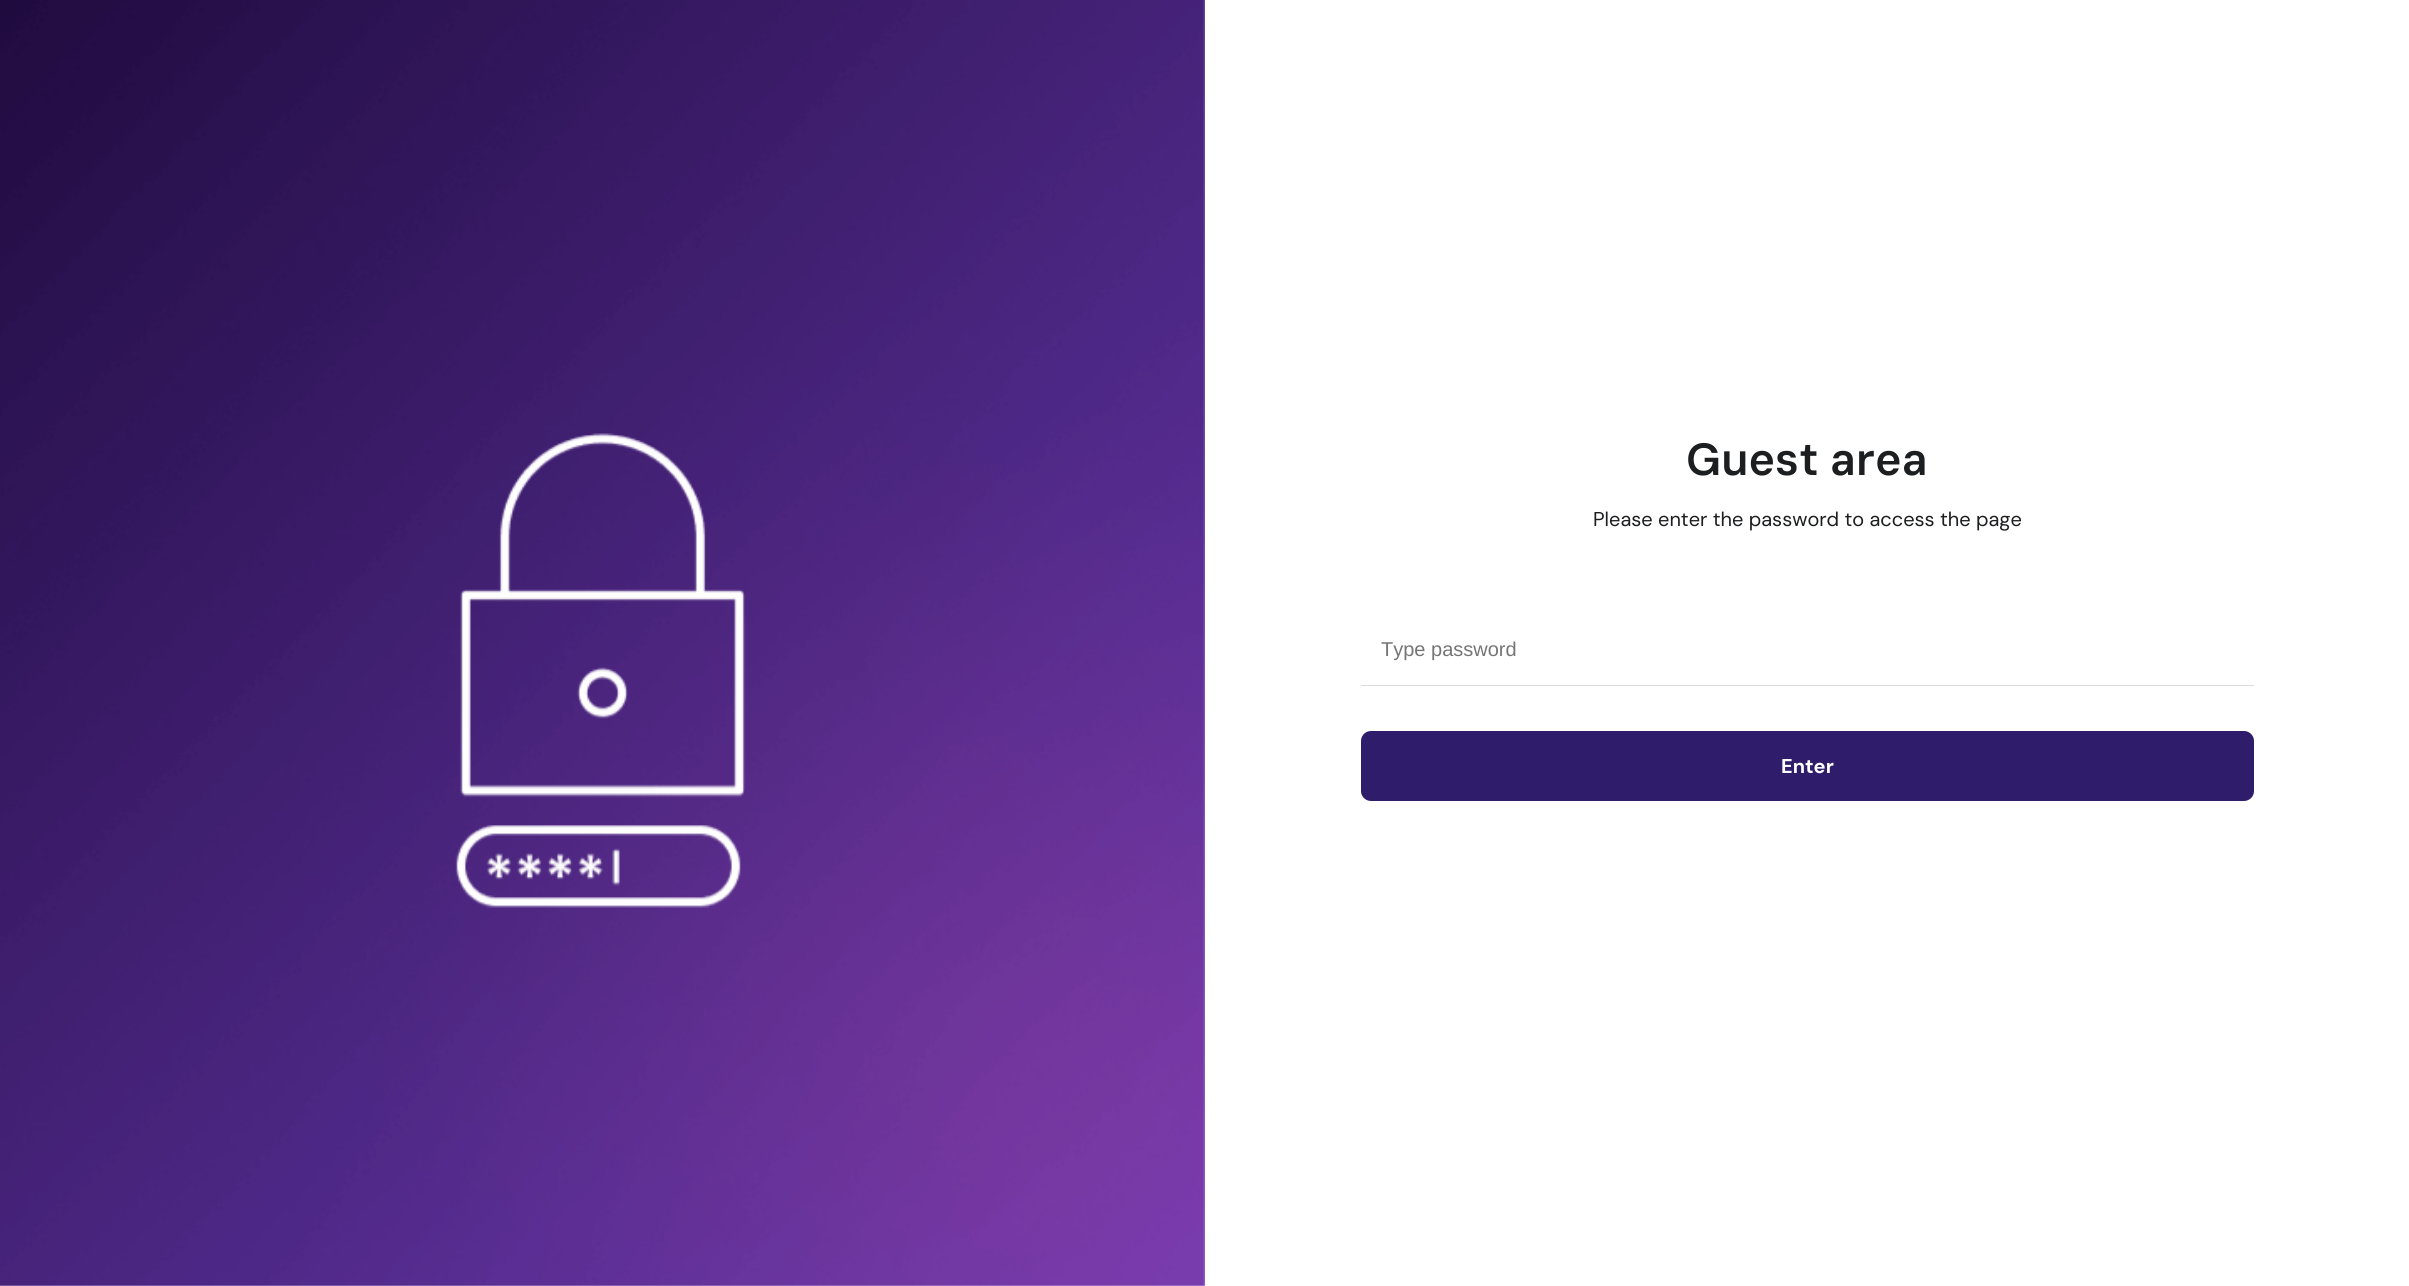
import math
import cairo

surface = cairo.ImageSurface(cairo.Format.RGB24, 2409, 1286)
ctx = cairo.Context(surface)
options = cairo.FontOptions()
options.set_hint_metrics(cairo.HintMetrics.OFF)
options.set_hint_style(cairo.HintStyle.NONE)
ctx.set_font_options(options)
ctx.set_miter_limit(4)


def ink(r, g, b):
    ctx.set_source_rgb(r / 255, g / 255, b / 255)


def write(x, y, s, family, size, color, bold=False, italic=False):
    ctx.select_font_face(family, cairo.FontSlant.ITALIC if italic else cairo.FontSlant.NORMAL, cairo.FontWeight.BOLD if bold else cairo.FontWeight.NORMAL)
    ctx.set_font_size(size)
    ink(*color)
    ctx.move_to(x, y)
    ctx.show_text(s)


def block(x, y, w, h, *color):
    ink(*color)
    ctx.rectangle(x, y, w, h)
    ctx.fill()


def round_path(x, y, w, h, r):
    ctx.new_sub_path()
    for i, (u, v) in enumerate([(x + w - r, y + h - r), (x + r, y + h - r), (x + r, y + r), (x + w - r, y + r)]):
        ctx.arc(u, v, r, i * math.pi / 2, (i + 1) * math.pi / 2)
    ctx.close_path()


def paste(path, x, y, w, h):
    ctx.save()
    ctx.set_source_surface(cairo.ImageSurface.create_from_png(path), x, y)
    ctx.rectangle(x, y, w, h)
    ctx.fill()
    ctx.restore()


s1 = dict(family="DM Sans SemiBold", size=45, color=(29, 30, 32))
s2 = dict(family="DM Sans", size=20, color=(29, 30, 32))
s3 = dict(family="Liberation Sans", size=20, color=(117, 117, 117))
s4 = dict(family="DM Sans", size=20, color=(255, 255, 255), bold=True)

ink(255, 255, 255)
ctx.paint()
paste("pic1.png", 0, 0, 1205, 1286)
write(1686, 475, "Guest area", **s1)
write(1593, 526, "Please enter the password to access the page", **s2)
block(1361, 685, 893, 1, 218, 220, 224)
write(1381, 656, "Type password", **s3)
ink(47, 28, 106)
round_path(1361, 731, 893, 70, 10)
ctx.fill()
write(1781, 773, "Enter", **s4)
surface.write_to_png("screenshot.png")
